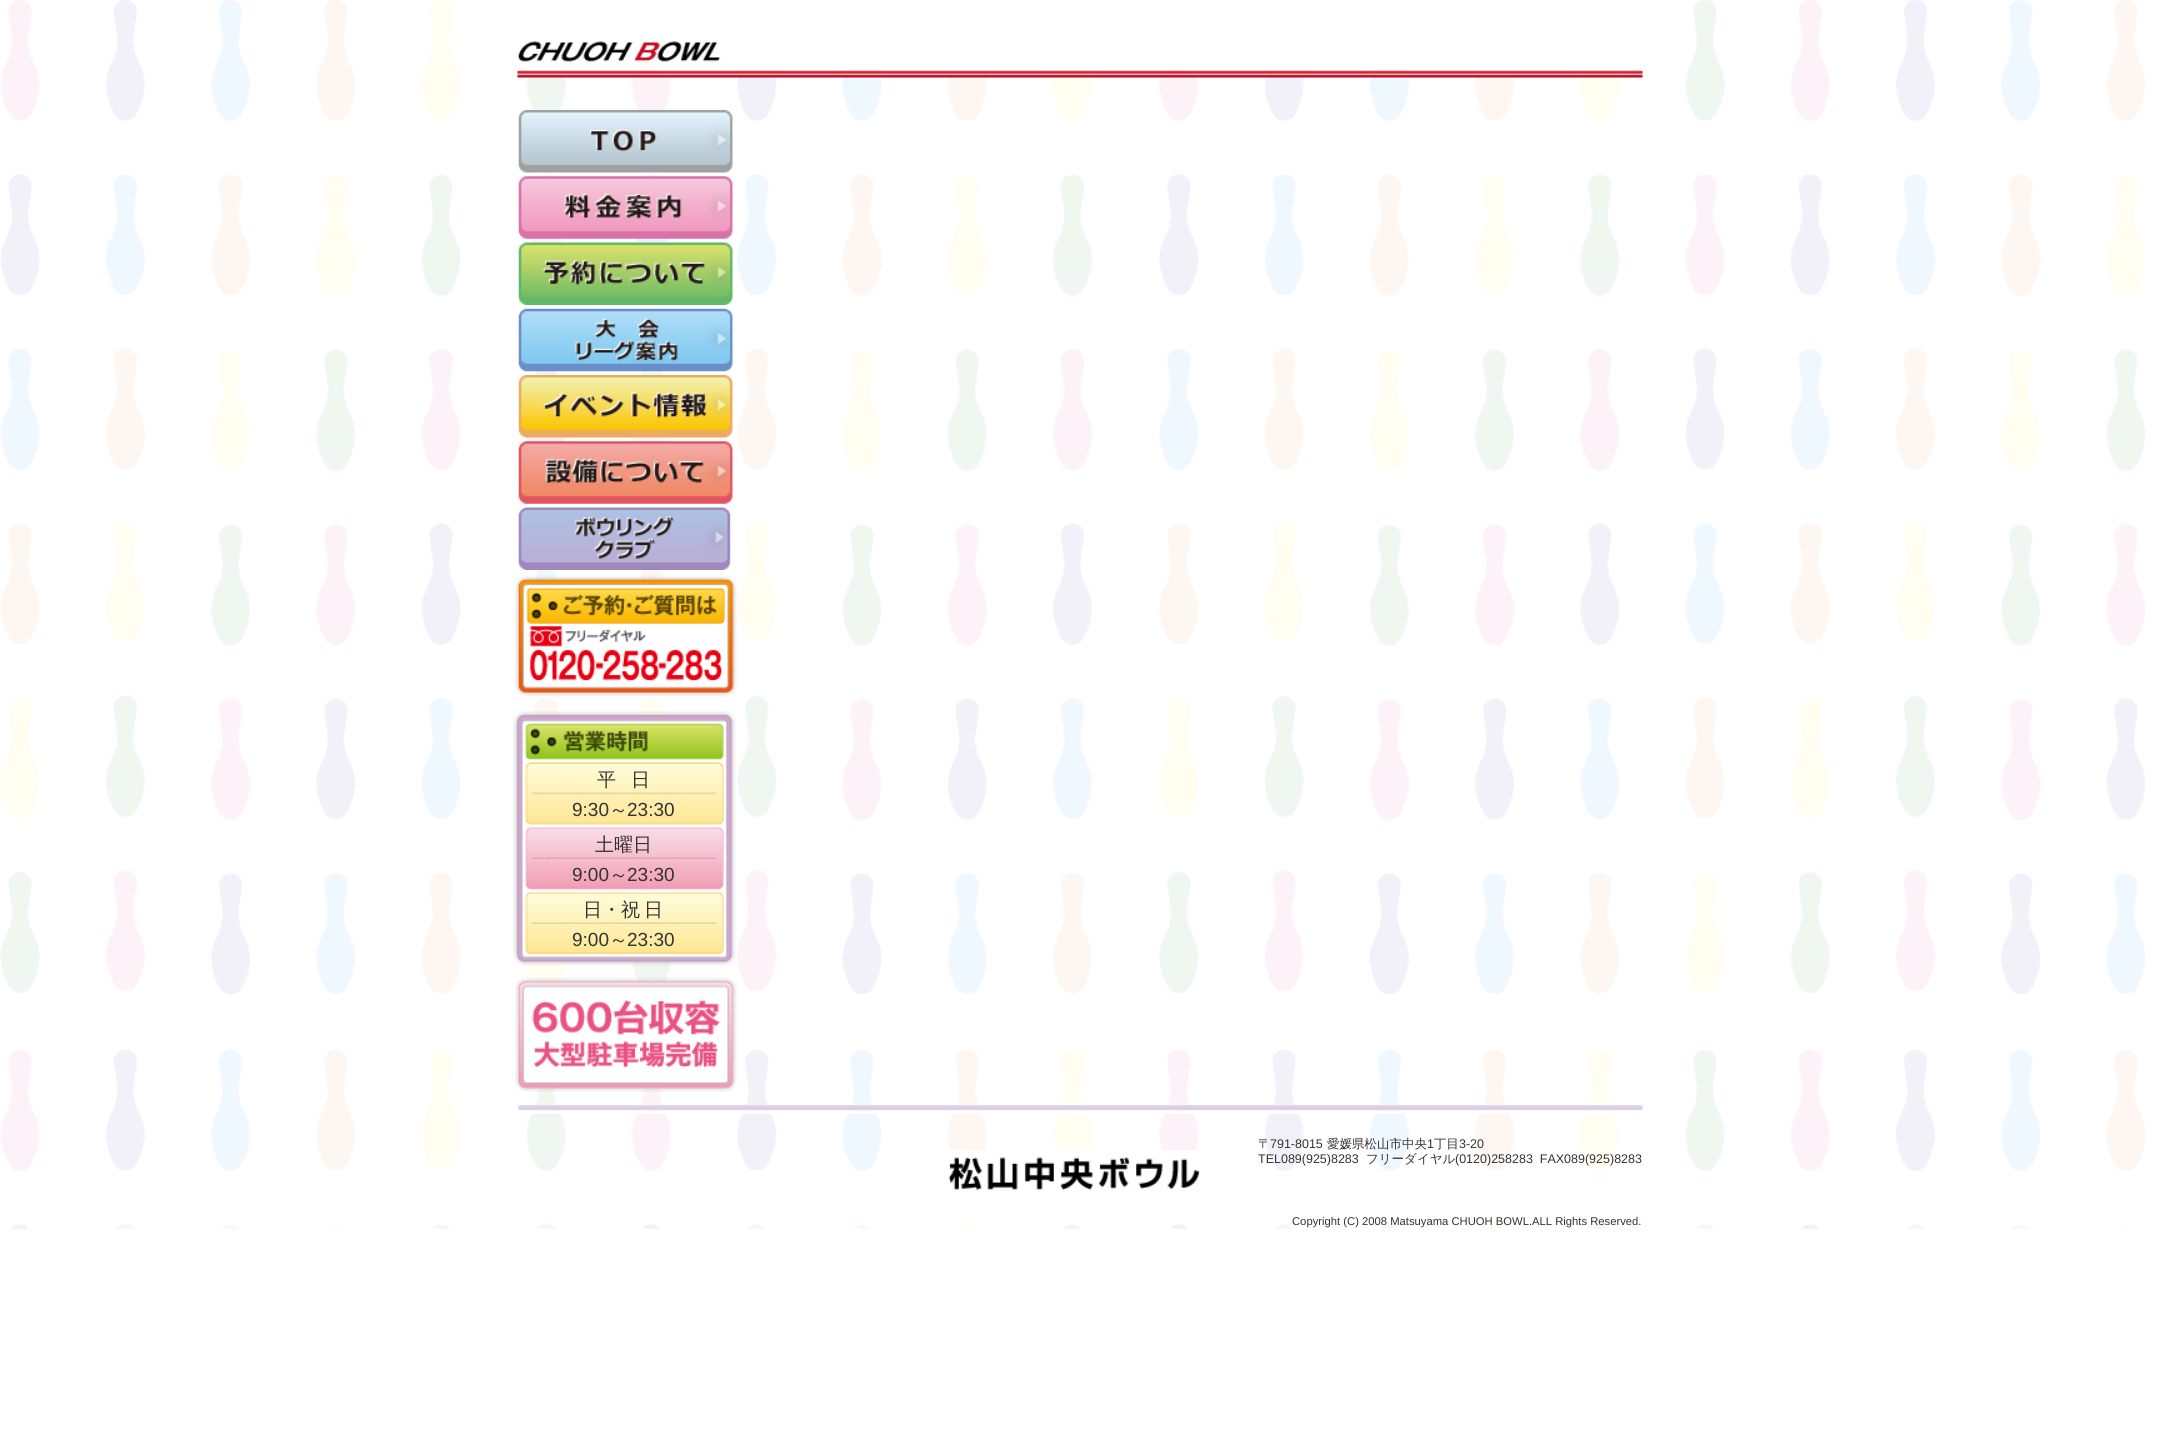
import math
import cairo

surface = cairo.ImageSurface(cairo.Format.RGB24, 2158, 1445)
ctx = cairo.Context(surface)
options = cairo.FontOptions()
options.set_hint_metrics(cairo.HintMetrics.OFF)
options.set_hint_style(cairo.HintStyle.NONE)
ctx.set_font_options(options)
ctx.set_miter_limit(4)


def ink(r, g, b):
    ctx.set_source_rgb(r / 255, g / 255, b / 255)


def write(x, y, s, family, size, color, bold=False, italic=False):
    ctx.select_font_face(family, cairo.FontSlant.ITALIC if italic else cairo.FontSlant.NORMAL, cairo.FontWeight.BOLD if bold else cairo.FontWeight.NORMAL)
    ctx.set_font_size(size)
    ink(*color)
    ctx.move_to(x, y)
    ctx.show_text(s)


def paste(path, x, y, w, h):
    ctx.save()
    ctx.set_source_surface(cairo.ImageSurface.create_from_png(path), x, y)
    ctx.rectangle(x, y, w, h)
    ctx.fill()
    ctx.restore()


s1 = dict(family="WenQuanYi Zen Hei Medium", size=19, color=(51, 51, 51))
s2 = dict(family="Liberation Sans", size=19, color=(51, 51, 51))
s3 = dict(family="WenQuanYi Zen Hei Medium", size=12.5, color=(51, 51, 51))
s4 = dict(family="Liberation Sans", size=12.5, color=(51, 51, 51))
s5 = dict(family="Liberation Sans", size=11.25, color=(51, 51, 51))

ink(255, 255, 255)
ctx.paint()
paste("pic1.png", 0, 0, 2145, 1229)
paste("pic2.png", 511, 0, 1138, 78)
paste("pic3.png", 518, 41, 203, 21)
paste("pic4.png", 517, 1105, 1126, 9)
paste("pic5.png", 518, 110, 215, 63)
paste("pic6.png", 518, 176, 215, 63)
paste("pic7.png", 518, 242, 215, 63)
paste("pic8.png", 518, 308, 215, 64)
paste("pic9.png", 518, 375, 215, 63)
paste("pic10.png", 518, 441, 215, 63)
paste("pic11.png", 518, 507, 214, 63)
paste("pic12.png", 514, 575, 223, 122)
paste("pic13.png", 513, 711, 223, 255)
write(597, 786, "平", **s1)
write(631, 786, "日", **s1)
write(572, 816, "9:30", **s2)
write(609, 816, "～", **s1)
write(627, 816, "23:30", **s2)
write(595, 851, "土曜日", **s1)
write(572, 881, "9:00", **s2)
write(609, 881, "～", **s1)
write(627, 881, "23:30", **s2)
write(583, 916, "日・祝", **s1)
write(644, 916, "日", **s1)
write(572, 946, "9:00", **s2)
write(609, 946, "～", **s1)
write(627, 946, "23:30", **s2)
paste("pic14.png", 515, 977, 222, 115)
paste("pic15.png", 948, 1150, 252, 41)
write(1258, 1148, "〒", **s3)
write(1270, 1148, "791-8015", **s4)
write(1327, 1148, "愛媛県松山市中央", **s3)
write(1427, 1148, "1", **s4)
write(1434, 1148, "丁目", **s3)
write(1459, 1148, "3-20", **s4)
write(1258, 1163, "TEL089(925)8283", **s4)
write(1366, 1163, "フリーダイヤル", **s3)
write(1455, 1163, "(0120)258283  FAX089(925)8283", **s4)
write(1292, 1225, "Copyright (C) 2008 Matsuyama CHUOH BOWL.ALL Rights Reserved.", **s5)
surface.write_to_png("screenshot.png")
